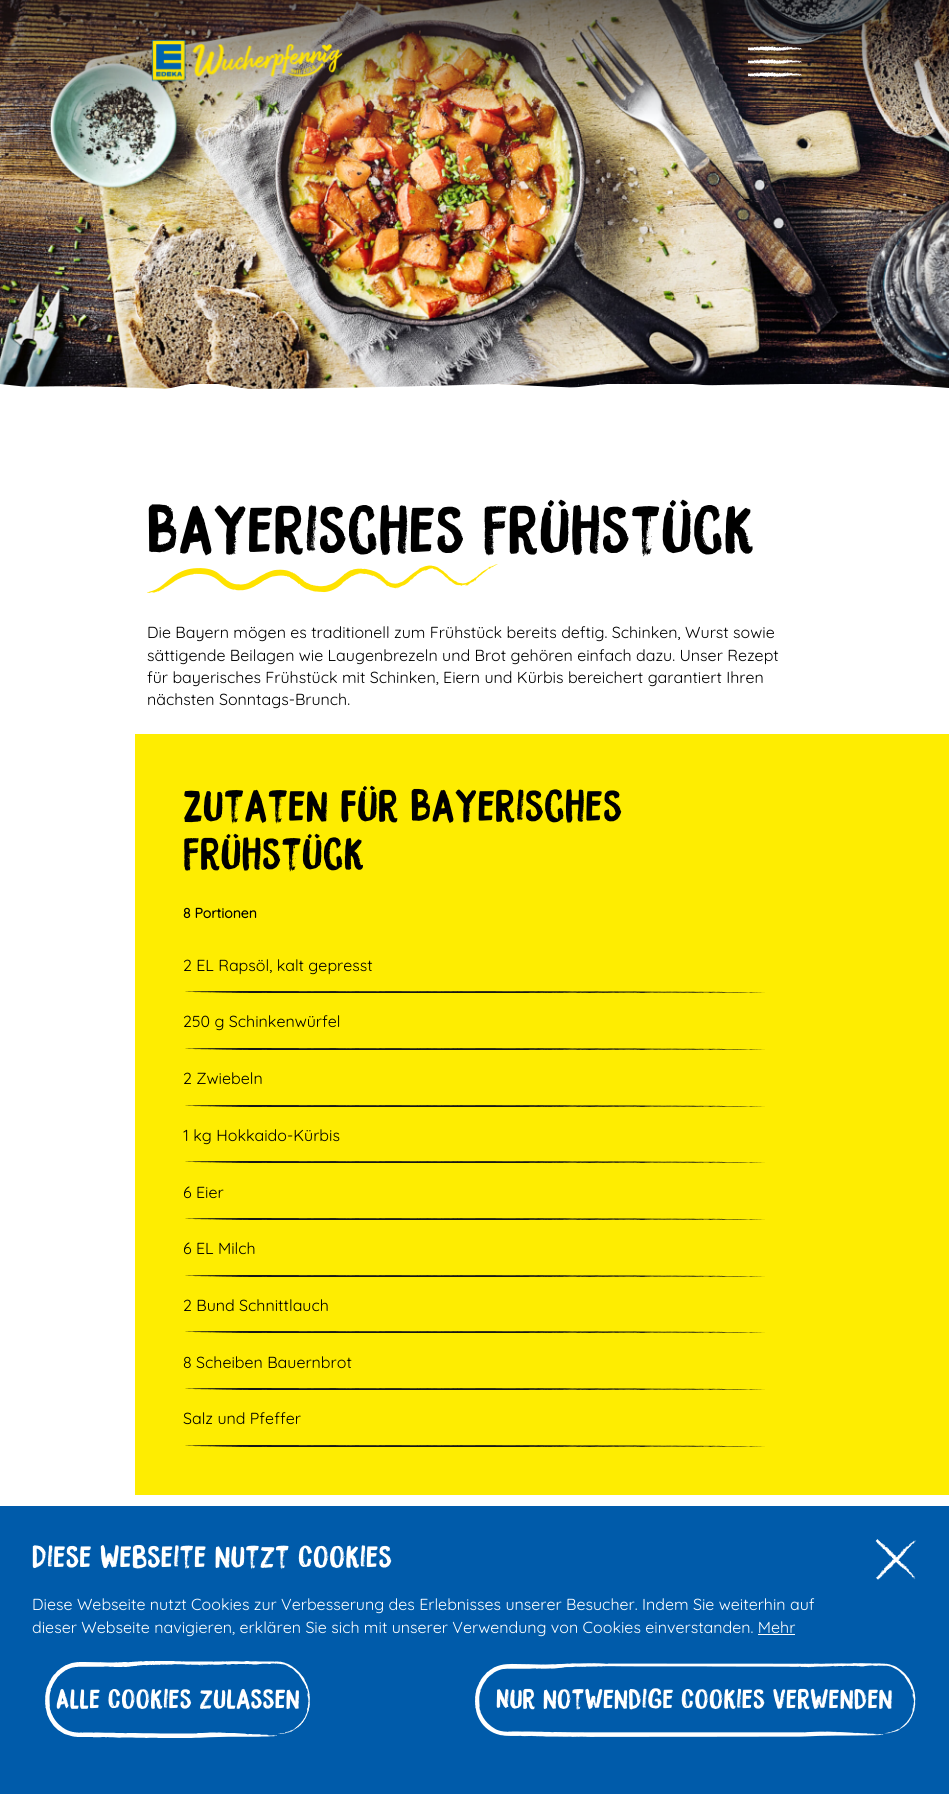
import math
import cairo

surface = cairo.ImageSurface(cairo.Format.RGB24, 949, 1794)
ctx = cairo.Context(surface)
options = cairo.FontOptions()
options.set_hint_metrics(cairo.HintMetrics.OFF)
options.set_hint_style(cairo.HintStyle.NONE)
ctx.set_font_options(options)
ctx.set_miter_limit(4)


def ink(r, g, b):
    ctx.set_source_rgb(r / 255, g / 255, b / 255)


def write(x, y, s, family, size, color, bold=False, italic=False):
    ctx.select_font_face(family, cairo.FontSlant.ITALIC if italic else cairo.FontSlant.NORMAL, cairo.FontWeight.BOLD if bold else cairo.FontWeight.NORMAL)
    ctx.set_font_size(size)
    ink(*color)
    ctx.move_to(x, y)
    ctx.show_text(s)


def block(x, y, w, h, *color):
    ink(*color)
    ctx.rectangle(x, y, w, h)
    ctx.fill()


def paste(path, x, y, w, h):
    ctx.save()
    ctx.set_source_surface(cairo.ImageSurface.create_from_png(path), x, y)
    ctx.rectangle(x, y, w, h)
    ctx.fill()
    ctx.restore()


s1 = dict(family="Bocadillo", size=60, color=(0, 0, 0))
s2 = dict(family="Quicksand", size=16, color=(0, 0, 0))
s3 = dict(family="Bocadillo", size=40, color=(0, 0, 0))
s4 = dict(family="Quicksand", size=14, color=(0, 0, 0), bold=True)
s5 = dict(family="Bocadillo", size=28, color=(255, 255, 255))
s6 = dict(family="Quicksand", size=16, color=(255, 255, 255))
s7 = dict(family="Bocadillo", size=25, color=(255, 255, 255))

ink(255, 255, 255)
ctx.paint()
paste("pic5.png", 0, 0, 949, 389)
paste("pic1.png", 151, 39, 192, 43)
paste("pic2.png", 748, 46, 54, 5)
paste("pic3.png", 748, 59, 54, 5)
paste("pic4.png", 748, 72, 54, 5)
ctx.save()
ctx.rectangle(0, 384, 949, 16)
ctx.clip()
ink(255, 255, 255)
ctx.new_path()
ctx.move_to(0, 400)
ctx.line_to(0, 388)
ctx.curve_to(0, 388, 53, 384, 146, 388)
ctx.curve_to(239, 392, 498, 384, 498, 384)
ctx.curve_to(498, 384, 572, 388, 594, 388)
ctx.curve_to(667, 386, 707, 385, 791, 384)
ctx.curve_to(899, 383, 949, 388, 949, 388)
ctx.line_to(949, 400)
ctx.fill()
ctx.restore()
write(147, 554, "Bayerisches Frühstück", **s1)
paste("pic6.png", 147, 564, 351, 29)
write(147, 638, "Die Bayern mögen es traditionell zum Frühstück bereits deftig. Schinken, Wurst sowie", **s2)
write(147, 661, "sättigende Beilagen wie Laugenbrezeln und Brot gehören einfach dazu. Unser Rezept", **s2)
write(147, 683, "für bayerisches Frühstück mit Schinken, Eiern und Kürbis bereichert garantiert Ihren", **s2)
write(147, 705, "nächsten Sonntags-Brunch.", **s2)
block(135, 734, 814, 761, 254, 237, 1)
write(183, 822, "Zutaten für Bayerisches", **s3)
write(183, 870, "Frühstück", **s3)
write(183, 918, "8 Portionen", **s4)
write(183, 971, "2 EL Rapsöl, kalt gepresst", **s2)
paste("pic7.png", 185, 991, 580, 2)
write(183, 1027, "250 g Schinkenwürfel", **s2)
paste("pic7.png", 185, 1048, 580, 2)
write(183, 1084, "2 Zwiebeln", **s2)
paste("pic7.png", 185, 1105, 580, 2)
write(183, 1141, "1 kg Hokkaido-Kürbis", **s2)
paste("pic7.png", 185, 1161, 580, 2)
write(183, 1198, "6 Eier", **s2)
paste("pic7.png", 185, 1218, 580, 2)
write(183, 1254, "6 EL Milch", **s2)
paste("pic7.png", 185, 1275, 580, 2)
write(183, 1311, "2 Bund Schnittlauch", **s2)
paste("pic7.png", 185, 1331, 580, 2)
write(183, 1368, "8 Scheiben Bauernbrot", **s2)
paste("pic7.png", 185, 1388, 580, 2)
write(183, 1424, "Salz und Pfeffer", **s2)
paste("pic7.png", 185, 1445, 580, 2)
block(0, 1506, 949, 288, 0, 91, 170)
write(32, 1568, "Diese Webseite nutzt Cookies", **s5)
paste("pic8.png", 875, 1539, 42, 41)
write(32, 1610, "Diese Webseite nutzt Cookies zur Verbesserung des Erlebnisses unserer Besucher. Indem Sie weiterhin auf", **s6)
write(32, 1633, "dieser Webseite navigieren, erklären Sie sich mit unserer Verwendung von Cookies einverstanden. Mehr", **s6)
block(758, 1634, 37, 1, 255, 255, 255)
paste("pic9.png", 45, 1661, 265, 77)
write(56, 1709, "Alle Cookies zulassen", **s7)
paste("pic10.png", 475, 1663, 441, 74)
write(496, 1709, "Nur notwendige Cookies verwenden", **s7)
surface.write_to_png("screenshot.png")
